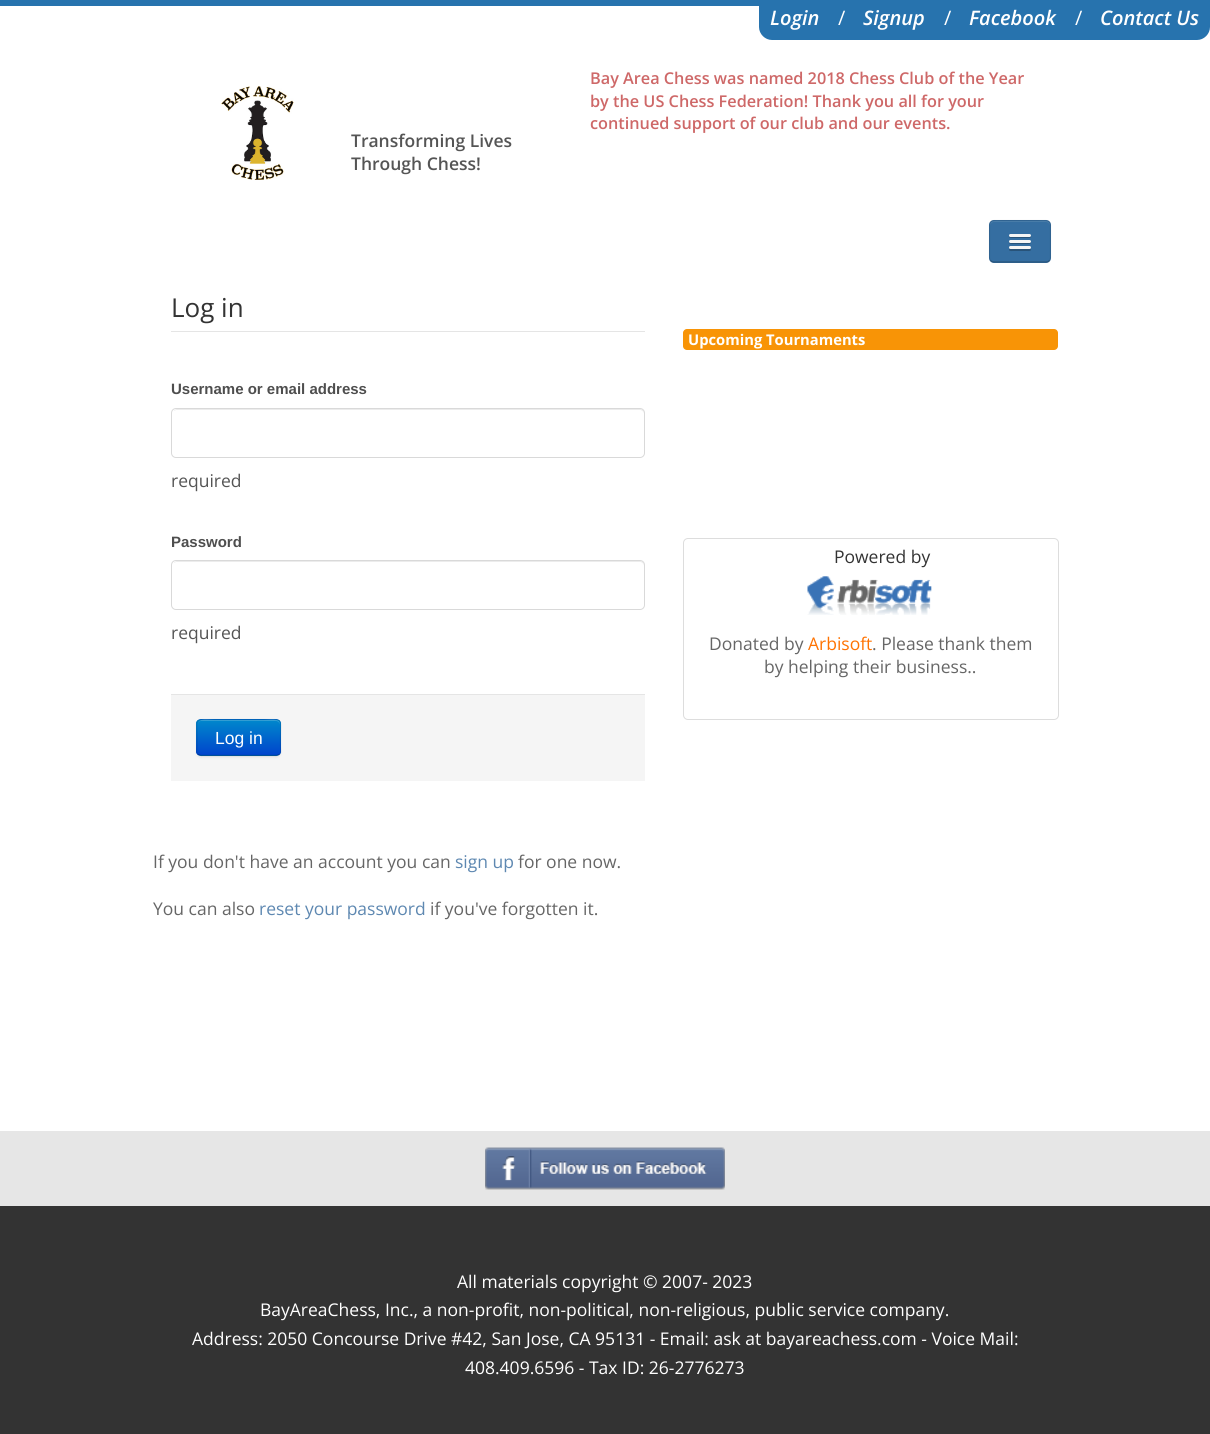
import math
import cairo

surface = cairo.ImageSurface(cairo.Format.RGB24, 1210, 1434)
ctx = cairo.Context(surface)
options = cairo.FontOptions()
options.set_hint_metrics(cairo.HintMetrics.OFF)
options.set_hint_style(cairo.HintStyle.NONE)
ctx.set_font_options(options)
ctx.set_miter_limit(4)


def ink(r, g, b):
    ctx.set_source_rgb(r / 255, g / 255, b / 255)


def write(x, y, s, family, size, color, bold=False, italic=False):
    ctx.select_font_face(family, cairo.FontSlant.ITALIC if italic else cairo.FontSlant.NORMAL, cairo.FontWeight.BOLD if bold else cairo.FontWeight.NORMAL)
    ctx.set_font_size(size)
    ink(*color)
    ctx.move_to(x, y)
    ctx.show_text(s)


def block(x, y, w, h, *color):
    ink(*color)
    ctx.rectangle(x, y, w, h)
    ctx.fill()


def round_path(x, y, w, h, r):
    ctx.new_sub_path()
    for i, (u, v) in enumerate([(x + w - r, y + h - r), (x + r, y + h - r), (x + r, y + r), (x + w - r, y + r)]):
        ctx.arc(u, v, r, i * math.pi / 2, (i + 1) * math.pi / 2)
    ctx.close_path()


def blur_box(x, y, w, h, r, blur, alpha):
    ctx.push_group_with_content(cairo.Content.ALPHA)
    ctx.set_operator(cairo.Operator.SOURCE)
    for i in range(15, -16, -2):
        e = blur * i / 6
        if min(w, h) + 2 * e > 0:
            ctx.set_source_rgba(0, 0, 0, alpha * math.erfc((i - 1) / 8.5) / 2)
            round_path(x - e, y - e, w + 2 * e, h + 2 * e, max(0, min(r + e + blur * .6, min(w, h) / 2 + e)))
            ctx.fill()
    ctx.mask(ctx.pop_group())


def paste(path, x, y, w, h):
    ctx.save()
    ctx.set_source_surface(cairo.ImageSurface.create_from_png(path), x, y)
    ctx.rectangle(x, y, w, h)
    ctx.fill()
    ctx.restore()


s1 = dict(family="Open Sans SemiBold", size=20, color=(255, 255, 255), italic=True)
s2 = dict(family="Open Sans", size=20, color=(255, 255, 255))
s3 = dict(family="Open Sans SemiBold", size=16.25, color=(206, 104, 104))
s4 = dict(family="Open Sans SemiBold", size=17.5, color=(85, 85, 85))
s5 = dict(family="Open Sans", size=26, color=(51, 51, 51))
s6 = dict(family="Liberation Sans", size=15, color=(78, 78, 78), bold=True)
s7 = dict(family="Open Sans", size=17.5, color=(85, 85, 85))
s8 = dict(family="Liberation Sans", size=17.5, color=(255, 255, 255))
s9 = dict(family="Open Sans", size=17.5, color=(102, 102, 102))
s10 = dict(family="Open Sans", size=17.5, color=(94, 136, 177))
s11 = dict(family="Open Sans", size=14.75, color=(255, 255, 255), bold=True)
s12 = dict(family="Open Sans", size=17.5, color=(51, 51, 51))
s13 = dict(family="Open Sans", size=17.5, color=(255, 115, 2))
s14 = dict(family="Open Sans", size=17.5, color=(255, 255, 255))

ink(255, 255, 255)
ctx.paint()
block(0, 0, 1210, 6, 39, 115, 174)
ctx.new_path()
ctx.move_to(759, 6)
ctx.line_to(1210, 6)
ctx.line_to(1210, 27)
ctx.curve_to(1210, 34, 1204, 40, 1197, 40)
ctx.line_to(772, 40)
ctx.curve_to(765, 40, 759, 34, 759, 27)
ctx.close_path()
ctx.fill()
write(770, 25, "Login", **s1)
write(838, 25, "/", **s2)
write(863, 25, "Signup", **s1)
write(944, 25, "/", **s2)
write(969, 25, "Facebook", **s1)
write(1075, 25, "/", **s2)
write(1100, 25, "Contact Us", **s1)
write(590, 84, "Bay Area Chess was named 2018 Chess Club of the Year", **s3)
write(590, 107, "by the US Chess Federation! Thank you all for your", **s3)
write(590, 129, "continued support of our club and our events.", **s3)
paste("pic1.png", 221, 86, 73, 94)
write(351, 147, "Transforming Lives", **s4)
write(351, 170, "Through Chess!", **s4)
ink(53, 110, 161)
round_path(989, 220, 62, 43, 5)
ctx.fill()
ink(73, 125, 170)
ctx.new_path()
ctx.move_to(994, 222)
ctx.line_to(1046, 222)
ctx.curve_to(1048, 222, 1050, 224, 1050, 226)
ctx.curve_to(1050, 219, 1042, 221, 1037, 221)
ctx.line_to(1003, 221)
ctx.curve_to(998, 221, 990, 219, 990, 226)
ctx.curve_to(990, 224, 992, 222, 994, 222)
ctx.close_path()
ctx.fill()
ctx.new_path()
ctx.move_to(1049.5, 260.5)
ctx.curve_to(1048.5, 261.5, 1047.5, 262, 1046, 262)
ctx.line_to(994, 262)
ctx.curve_to(992.5, 262, 991.5, 261.5, 990.5, 260.5)
ctx.set_source_rgba(0, 0, 0, 0.25)
ctx.set_line_width(1.2)
ctx.stroke()
ctx.new_path()
ctx.move_to(990.5, 260.5)
ctx.curve_to(990, 260, 989.5, 258.5, 989.5, 257.5)
ctx.line_to(989.5, 225)
ctx.curve_to(989.5, 224, 990, 222.5, 990.5, 222)
ctx.curve_to(991.5, 221, 992.5, 220.5, 994, 220.5)
ctx.line_to(1046, 220.5)
ctx.curve_to(1047.5, 220.5, 1048.5, 221, 1049.5, 222)
ctx.curve_to(1050, 222.5, 1050.5, 224, 1050.5, 225)
ctx.line_to(1050.5, 257.5)
ctx.curve_to(1050.5, 258.5, 1050, 260, 1049.5, 260.5)
ctx.set_source_rgba(0, 0, 0, 0.1)
ctx.stroke()
ink(40, 83, 121)
ctx.new_path()
ctx.move_to(1009, 236)
ctx.curve_to(1008, 238.5, 1013, 238, 1013.5, 238)
ctx.line_to(1026.5, 238)
ctx.curve_to(1027, 238, 1032, 238.5, 1031, 236)
ctx.curve_to(1030, 236.5, 1010, 236.5, 1009, 236)
ctx.close_path()
ctx.fill()
ink(245, 245, 245)
round_path(1009, 234, 22, 3, 1.5)
ctx.fill()
ink(40, 83, 121)
ctx.new_path()
ctx.move_to(1009, 242)
ctx.curve_to(1008.5, 244.5, 1013, 244, 1013.5, 244)
ctx.line_to(1026.5, 244)
ctx.curve_to(1027, 244, 1031.5, 244.5, 1031, 242)
ctx.curve_to(1030, 243, 1010, 243, 1009, 242)
ctx.close_path()
ctx.fill()
ink(245, 245, 245)
round_path(1009, 240, 22, 3, 1.5)
ctx.fill()
ink(40, 83, 121)
ctx.new_path()
ctx.move_to(1009.5, 248.5)
ctx.line_to(1009, 250)
ctx.curve_to(1009.5, 251.5, 1012.5, 251, 1013.5, 251)
ctx.line_to(1026.5, 251)
ctx.curve_to(1027.5, 251, 1030.5, 251.5, 1031, 250)
ctx.line_to(1030.5, 248.5)
ctx.close_path()
ctx.fill()
ink(245, 245, 245)
round_path(1009, 246, 22, 3, 1.5)
ctx.fill()
block(171, 331, 474, 1, 229, 229, 229)
write(171, 317, "Log in", **s5)
write(171, 394, "Username or email address", **s6)
ink(236, 236, 236)
ctx.new_path()
ctx.move_to(176, 410)
ctx.line_to(640, 410)
ctx.curve_to(642, 410, 644, 412, 644, 414)
ctx.line_to(644, 413)
ctx.curve_to(644, 411, 642, 409, 640, 409)
ctx.line_to(177, 409)
ctx.curve_to(176, 409, 174, 410, 174, 411)
ctx.close_path()
ctx.fill()
round_path(171.5, 408.5, 473, 49, 4.5)
ink(217, 217, 217)
ctx.set_line_width(1)
ctx.stroke()
write(171, 487, "required", **s7)
write(171, 547, "Password", **s6)
ink(236, 236, 236)
ctx.new_path()
ctx.move_to(176, 562)
ctx.line_to(640, 562)
ctx.curve_to(642, 562, 644, 564, 644, 566)
ctx.line_to(644, 565)
ctx.curve_to(644, 563, 642, 561, 640, 561)
ctx.line_to(177, 561)
ctx.curve_to(176, 561, 174, 562, 174, 563)
ctx.close_path()
ctx.fill()
round_path(171.5, 560.5, 473, 49, 4.5)
ink(217, 217, 217)
ctx.stroke()
write(171, 639, "required", **s7)
block(171, 695, 474, 86, 245, 245, 245)
block(171, 694, 474, 1, 229, 229, 229)
ink(0, 0, 0)
blur_box(196, 720, 85, 38, 5, 1, 0.05)
ink(0, 109, 204)
round_path(196, 719, 85, 37, 5)
ctx.fill()
ctx.save()
round_path(196, 719, 85, 37, 5)
ctx.clip()
gradient = cairo.LinearGradient(239, 720, 239, 755)
gradient.add_color_stop_rgba(0, 0, 0.533, 0.8, 1)
gradient.add_color_stop_rgba(1, 0, 0.267, 0.8, 1)
ctx.set_source(gradient)
ctx.rectangle(196, 720, 85, 35)
ctx.fill()
ctx.restore()
ctx.set_source_rgba(1, 1, 1, 0.2)
ctx.new_path()
ctx.move_to(201, 721)
ctx.line_to(276, 721)
ctx.curve_to(278, 721, 280, 723, 280, 725)
ctx.curve_to(280, 717, 269, 720, 264, 720)
ctx.line_to(214, 720)
ctx.curve_to(209, 720, 198, 717, 198, 725)
ctx.curve_to(198, 723, 199, 721, 201, 721)
ctx.close_path()
ctx.fill()
ctx.new_path()
ctx.move_to(279.5, 754.5)
ctx.line_to(276.5, 755.5)
ctx.line_to(201, 755.5)
ctx.line_to(198, 754.5)
ctx.set_source_rgba(0, 0, 0, 0.25)
ctx.set_line_width(1.2)
ctx.stroke()
ctx.new_path()
ctx.move_to(198, 754.5)
ctx.curve_to(196, 752.5, 197, 749, 197, 746.5)
ctx.line_to(197, 737.5)
ctx.curve_to(197, 717.5, 193.5, 719.5, 214, 719.5)
ctx.line_to(264, 719.5)
ctx.curve_to(284, 719.5, 280.5, 717.5, 280.5, 737.5)
ctx.line_to(280.5, 746.5)
ctx.curve_to(280.5, 749, 281.5, 752.5, 279.5, 754.5)
ctx.set_source_rgba(0, 0, 0, 0.1)
ctx.stroke()
write(215, 744, "Log in", **s8)
write(153, 868, "If you don't have an account you can", **s9)
write(455, 868, "sign up", **s10)
write(518, 868, "for one now.", **s9)
write(153, 915, "You can also", **s9)
write(259, 915, "reset your password", **s10)
write(430, 915, "if you've forgotten it.", **s9)
ink(248, 148, 6)
round_path(683, 329, 375, 21, 4)
ctx.fill()
write(688, 345, "Upcoming Tournaments", **s11)
round_path(683.5, 538.5, 375, 181, 4.5)
ink(221, 221, 221)
ctx.set_line_width(1)
ctx.stroke()
write(834, 563, "Powered by", **s12)
paste("pic2.png", 807, 576, 125, 39)
write(709, 650, "Donated by", **s9)
write(808, 650, "Arbisoft", **s13)
write(872, 650, ". Please thank them", **s9)
write(764, 673, "by helping their business..", **s9)
block(0, 1131, 1210, 75, 230, 230, 230)
paste("pic3.png", 485, 1147, 240, 43)
block(0, 1206, 1210, 228, 51, 51, 51)
write(457, 1288, "All materials copyright © 2007- 2023", **s14)
write(260, 1316, "BayAreaChess, Inc., a non-profit, non-political, non-religious, public service company.", **s14)
write(192, 1345, "Address: 2050 Concourse Drive #42, San Jose, CA 95131 - Email: ask at bayareachess.com - Voice Mail:", **s14)
write(465, 1374, "408.409.6596 - Tax ID: 26-2776273", **s14)
surface.write_to_png("screenshot.png")
